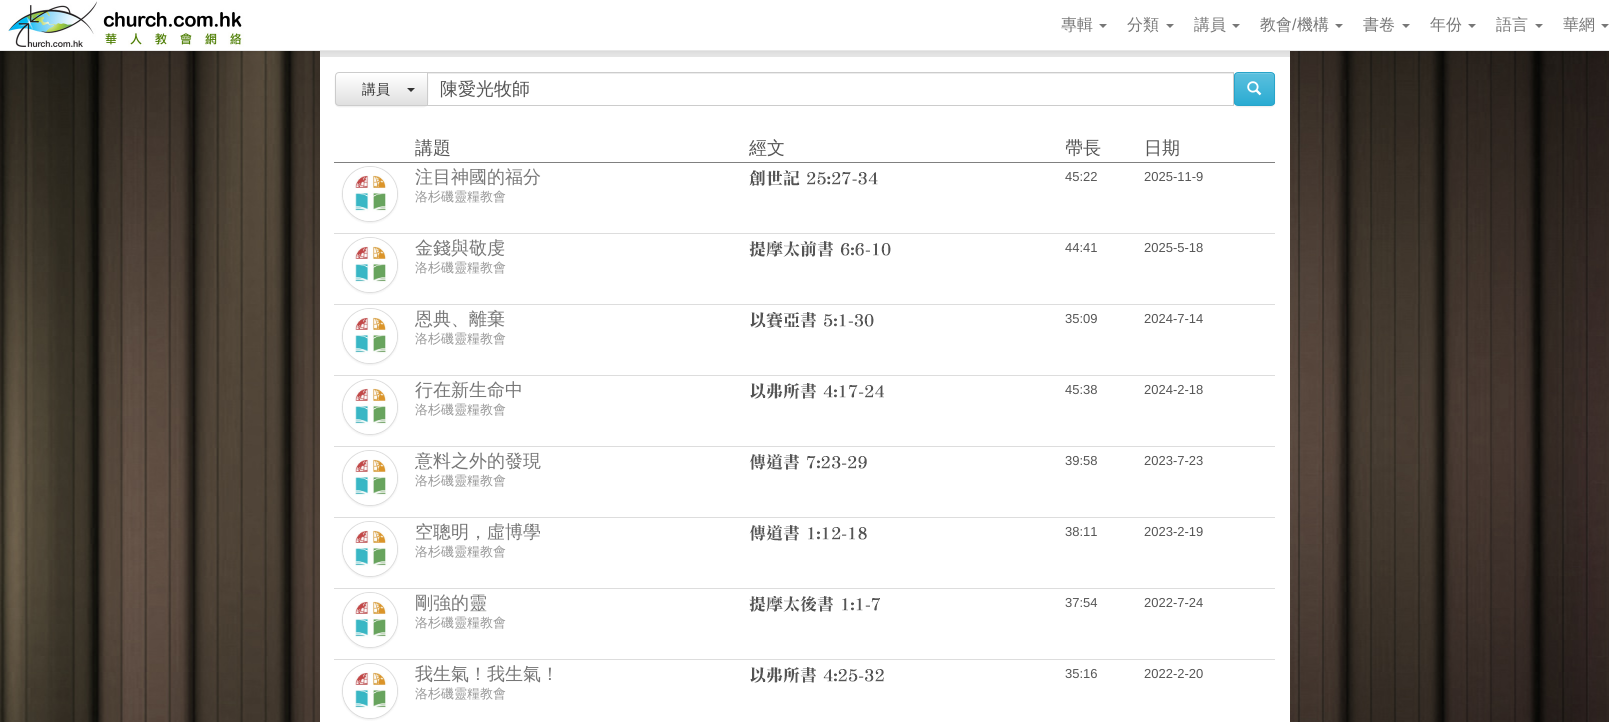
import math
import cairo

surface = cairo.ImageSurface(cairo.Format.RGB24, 1609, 722)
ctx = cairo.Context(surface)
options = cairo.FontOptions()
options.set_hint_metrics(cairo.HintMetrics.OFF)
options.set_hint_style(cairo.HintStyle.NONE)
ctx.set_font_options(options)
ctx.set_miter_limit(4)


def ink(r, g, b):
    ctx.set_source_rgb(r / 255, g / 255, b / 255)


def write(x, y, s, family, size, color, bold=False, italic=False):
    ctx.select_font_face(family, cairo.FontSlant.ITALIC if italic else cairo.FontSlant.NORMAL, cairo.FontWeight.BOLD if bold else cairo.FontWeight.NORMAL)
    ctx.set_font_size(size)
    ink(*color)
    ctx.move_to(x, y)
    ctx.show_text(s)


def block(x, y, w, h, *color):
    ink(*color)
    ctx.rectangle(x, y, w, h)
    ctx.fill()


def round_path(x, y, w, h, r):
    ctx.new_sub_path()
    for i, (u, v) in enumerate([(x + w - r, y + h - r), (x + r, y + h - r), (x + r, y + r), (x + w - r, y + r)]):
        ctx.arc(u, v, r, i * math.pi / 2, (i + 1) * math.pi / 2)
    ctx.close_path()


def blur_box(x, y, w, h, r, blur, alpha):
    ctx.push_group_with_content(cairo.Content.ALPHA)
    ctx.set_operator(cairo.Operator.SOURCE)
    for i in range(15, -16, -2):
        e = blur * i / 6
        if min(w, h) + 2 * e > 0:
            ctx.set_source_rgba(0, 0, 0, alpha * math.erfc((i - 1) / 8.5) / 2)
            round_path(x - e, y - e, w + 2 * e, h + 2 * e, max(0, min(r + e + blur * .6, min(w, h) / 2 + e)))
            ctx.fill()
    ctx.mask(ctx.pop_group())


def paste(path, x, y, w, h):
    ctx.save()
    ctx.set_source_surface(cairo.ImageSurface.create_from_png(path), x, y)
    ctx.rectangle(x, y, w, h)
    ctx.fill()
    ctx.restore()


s1 = dict(family="WenQuanYi Zen Hei Medium", size=16, color=(119, 119, 119))
s2 = dict(family="Liberation Sans", size=16, color=(119, 119, 119))
s3 = dict(family="WenQuanYi Zen Hei Medium", size=14, color=(51, 51, 51))
s4 = dict(family="WenQuanYi Zen Hei Medium", size=18, color=(85, 85, 85))
s5 = dict(family="WenQuanYi Zen Hei Medium", size=18, color=(119, 119, 119))
s6 = dict(family="WenQuanYi Zen Hei Medium", size=13, color=(153, 153, 153))
s7 = dict(family="Liberation Sans", size=13, color=(85, 85, 85))

ink(255, 255, 255)
ctx.paint()
paste("pic1.png", 0, 51, 1609, 671)
block(320, 51, 970, 6, 229, 229, 229)
block(320, 57, 970, 665, 255, 255, 255)
ink(0, 0, 0)
blur_box(0, 1, 1609, 51, 0, 2.5, 0.07)
block(0, 50, 1609, 1, 231, 231, 231)
block(0, 0, 1609, 50, 255, 255, 255)
paste("pic2.png", 8, 1, 236, 46)
write(1061, 30, "專輯", **s1)
ctx.new_path()
ctx.move_to(1099, 24)
ctx.line_to(1107, 24)
ctx.line_to(1103, 28)
ctx.close_path()
ctx.fill()
write(1127, 30, "分類", **s1)
ctx.new_path()
ctx.move_to(1166, 24)
ctx.line_to(1174, 24)
ctx.line_to(1170, 28)
ctx.close_path()
ctx.fill()
write(1194, 30, "講員", **s1)
ctx.new_path()
ctx.move_to(1232, 24)
ctx.line_to(1240, 24)
ctx.line_to(1236, 28)
ctx.close_path()
ctx.fill()
write(1260, 30, "教會", **s1)
write(1292, 30, "/", **s2)
write(1297, 30, "機構", **s1)
ctx.new_path()
ctx.move_to(1335, 24)
ctx.line_to(1343, 24)
ctx.line_to(1339, 28)
ctx.close_path()
ctx.fill()
write(1363, 30, "書卷", **s1)
ctx.new_path()
ctx.move_to(1402, 24)
ctx.line_to(1410, 24)
ctx.line_to(1406, 28)
ctx.close_path()
ctx.fill()
write(1430, 30, "年份", **s1)
ctx.new_path()
ctx.move_to(1468, 24)
ctx.line_to(1476, 24)
ctx.line_to(1472, 28)
ctx.close_path()
ctx.fill()
write(1496, 30, "語言", **s1)
ctx.new_path()
ctx.move_to(1535, 24)
ctx.line_to(1543, 24)
ctx.line_to(1539, 28)
ctx.close_path()
ctx.fill()
write(1563, 30, "華網", **s1)
ctx.new_path()
ctx.move_to(1601, 24)
ctx.line_to(1609, 24)
ctx.line_to(1605, 28)
ctx.close_path()
ctx.fill()
ink(0, 0, 0)
blur_box(335, 73, 93, 34, 4, 0.5, 0.07)
ctx.save()
ctx.new_path()
ctx.move_to(339, 72)
ctx.line_to(428, 72)
ctx.line_to(428, 106)
ctx.line_to(339, 106)
ctx.curve_to(337, 106, 335, 104, 335, 102)
ctx.line_to(335, 76)
ctx.curve_to(335, 74, 337, 72, 339, 72)
ctx.close_path()
ctx.clip()
gradient = cairo.LinearGradient(382, 73, 382, 105)
gradient.add_color_stop_rgba(0, 1, 1, 1, 1)
gradient.add_color_stop_rgba(1, 0.878, 0.878, 0.878, 1)
ctx.set_source(gradient)
ctx.rectangle(335, 73, 92, 32)
ctx.fill()
ctx.restore()
ctx.new_path()
ctx.move_to(339, 72.5)
ctx.line_to(427.5, 72.5)
ctx.line_to(427.5, 105.5)
ctx.line_to(339, 105.5)
ctx.curve_to(337, 105.5, 335.5, 104, 335.5, 102)
ctx.line_to(335.5, 76)
ctx.curve_to(335.5, 74, 337, 72.5, 339, 72.5)
ctx.close_path()
ink(204, 204, 204)
ctx.set_line_width(1)
ctx.stroke()
write(362, 94, "講員", **s3)
ctx.new_path()
ctx.move_to(407, 88)
ctx.line_to(415, 88)
ctx.line_to(411, 92)
ctx.close_path()
ctx.fill()
ink(0, 0, 0)
blur_box(1234, 73, 41, 34, 4, 0.5, 0.07)
block(428, 73, 805, 1, 236, 236, 236)
ctx.rectangle(427.5, 72.5, 806, 33)
ink(204, 204, 204)
ctx.stroke()
write(440, 95, "陳愛光牧師", **s4)
ctx.save()
round_path(1234, 72, 41, 34, 4)
ctx.clip()
gradient = cairo.LinearGradient(1255, 73, 1255, 105)
gradient.add_color_stop_rgba(0, 0.357, 0.753, 0.871, 1)
gradient.add_color_stop_rgba(1, 0.165, 0.671, 0.824, 1)
ctx.set_source(gradient)
ctx.rectangle(1234, 73, 41, 32)
ctx.fill()
ctx.restore()
ink(115, 201, 227)
ctx.new_path()
ctx.move_to(1238, 74)
ctx.line_to(1271, 74)
ctx.curve_to(1273, 74, 1274, 75, 1274, 77)
ctx.curve_to(1274, 71.5, 1270, 73, 1265.5, 73)
ctx.line_to(1243.5, 73)
ctx.curve_to(1239, 73, 1235, 71.5, 1235, 77)
ctx.curve_to(1235, 75, 1236, 74, 1238, 74)
ctx.close_path()
ctx.fill()
round_path(1234.5, 72.5, 40, 33, 3.5)
ink(40, 164, 201)
ctx.stroke()
paste("pic3.png", 1247, 81, 15, 15)
block(334, 162, 941, 1, 128, 128, 128)
write(415, 154, "講題", **s4)
write(749, 154, "經文", **s4)
write(1065, 154, "帶長", **s4)
write(1144, 154, "日期", **s4)
block(334, 233, 941, 1, 221, 221, 221)
ink(0, 0, 0)
blur_box(342, 167, 56, 56, 28, 1, 0.07)
ink(255, 255, 255)
ctx.arc(370, 194, 27.5, 0, 2 * math.pi)
ctx.fill_preserve()
ink(221, 221, 221)
ctx.stroke()
paste("pic4.png", 343, 167, 54, 54)
write(415, 183, "注目神國的福分", **s5)
write(415, 201, "洛杉磯靈糧教會", **s6)
paste("pic5.png", 749, 170, 16, 16)
paste("pic6.png", 766, 170, 17, 16)
paste("pic7.png", 783, 170, 17, 16)
paste("pic8.png", 807, 172, 71, 13)
write(1065, 181, "45:22", **s7)
write(1144, 181, "2025-11-9", **s7)
block(334, 304, 941, 1, 221, 221, 221)
ink(0, 0, 0)
blur_box(342, 238, 56, 56, 28, 1, 0.07)
ink(255, 255, 255)
ctx.arc(370, 265, 27.5, 0, 2 * math.pi)
ctx.fill_preserve()
ink(221, 221, 221)
ctx.stroke()
paste("pic4.png", 343, 238, 54, 54)
write(415, 254, "金錢與敬虔", **s5)
write(415, 272, "洛杉磯靈糧教會", **s6)
paste("pic9.png", 749, 241, 17, 16)
paste("pic10.png", 766, 241, 17, 16)
paste("pic11.png", 783, 241, 17, 16)
paste("pic12.png", 800, 241, 17, 16)
paste("pic13.png", 817, 241, 16, 16)
paste("pic14.png", 840, 243, 51, 13)
write(1065, 252, "44:41", **s7)
write(1144, 252, "2025-5-18", **s7)
block(334, 375, 941, 1, 221, 221, 221)
ink(0, 0, 0)
blur_box(342, 309, 56, 56, 28, 1, 0.07)
ink(255, 255, 255)
ctx.arc(370, 336, 27.5, 0, 2 * math.pi)
ctx.fill_preserve()
ink(221, 221, 221)
ctx.stroke()
paste("pic4.png", 343, 309, 54, 54)
write(415, 325, "恩典、離棄", **s5)
write(415, 343, "洛杉磯靈糧教會", **s6)
paste("pic15.png", 750, 312, 16, 16)
paste("pic16.png", 766, 312, 17, 16)
paste("pic17.png", 783, 312, 17, 15)
paste("pic13.png", 800, 312, 16, 16)
paste("pic18.png", 824, 314, 50, 13)
write(1065, 323, "35:09", **s7)
write(1144, 323, "2024-7-14", **s7)
block(334, 446, 941, 1, 221, 221, 221)
ink(0, 0, 0)
blur_box(342, 380, 56, 56, 28, 1, 0.07)
ink(255, 255, 255)
ctx.arc(370, 407, 27.5, 0, 2 * math.pi)
ctx.fill_preserve()
ink(221, 221, 221)
ctx.stroke()
paste("pic19.png", 343, 380, 54, 54)
write(415, 396, "行在新生命中", **s5)
write(415, 414, "洛杉磯靈糧教會", **s6)
paste("pic15.png", 750, 383, 16, 16)
paste("pic20.png", 767, 383, 16, 16)
paste("pic21.png", 783, 383, 17, 16)
paste("pic13.png", 800, 383, 16, 16)
paste("pic22.png", 823, 385, 61, 13)
write(1065, 394, "45:38", **s7)
write(1144, 394, "2024-2-18", **s7)
block(334, 517, 941, 1, 221, 221, 221)
ink(0, 0, 0)
blur_box(342, 451, 56, 56, 28, 1, 0.07)
ink(255, 255, 255)
ctx.arc(370, 478, 27.5, 0, 2 * math.pi)
ctx.fill_preserve()
ink(221, 221, 221)
ctx.stroke()
paste("pic4.png", 343, 451, 54, 54)
write(415, 467, "意料之外的發現", **s5)
write(415, 485, "洛杉磯靈糧教會", **s6)
paste("pic23.png", 749, 454, 17, 16)
paste("pic24.png", 766, 454, 17, 16)
paste("pic13.png", 783, 454, 16, 16)
paste("pic25.png", 807, 456, 60, 13)
write(1065, 465, "39:58", **s7)
write(1144, 465, "2023-7-23", **s7)
block(334, 588, 941, 1, 221, 221, 221)
ink(0, 0, 0)
blur_box(342, 522, 56, 56, 28, 1, 0.07)
ink(255, 255, 255)
ctx.arc(370, 549, 27.5, 0, 2 * math.pi)
ctx.fill_preserve()
ink(221, 221, 221)
ctx.stroke()
paste("pic4.png", 343, 522, 54, 54)
write(415, 538, "空聰明，虛博學", **s5)
write(415, 556, "洛杉磯靈糧教會", **s6)
paste("pic23.png", 749, 525, 17, 16)
paste("pic24.png", 766, 525, 17, 16)
paste("pic13.png", 783, 525, 16, 16)
paste("pic26.png", 808, 527, 59, 13)
write(1065, 536, "38:11", **s7)
write(1144, 536, "2023-2-19", **s7)
block(334, 659, 941, 1, 221, 221, 221)
ink(0, 0, 0)
blur_box(342, 593, 56, 56, 28, 1, 0.07)
ink(255, 255, 255)
ctx.arc(370, 620, 27.5, 0, 2 * math.pi)
ctx.fill_preserve()
ink(221, 221, 221)
ctx.stroke()
paste("pic4.png", 343, 593, 54, 54)
write(415, 609, "剛強的靈", **s5)
write(415, 627, "洛杉磯靈糧教會", **s6)
paste("pic9.png", 749, 596, 17, 16)
paste("pic10.png", 766, 596, 17, 16)
paste("pic11.png", 783, 596, 17, 16)
paste("pic27.png", 800, 596, 17, 16)
paste("pic13.png", 817, 596, 16, 16)
paste("pic28.png", 842, 598, 38, 13)
write(1065, 607, "37:54", **s7)
write(1144, 607, "2022-7-24", **s7)
ink(0, 0, 0)
blur_box(342, 664, 56, 56, 28, 1, 0.07)
ink(255, 255, 255)
ctx.arc(370, 691, 27.5, 0, 2 * math.pi)
ctx.fill_preserve()
ink(221, 221, 221)
ctx.stroke()
paste("pic29.png", 343, 664, 54, 54)
write(415, 680, "我生氣！我生氣！", **s5)
write(415, 698, "洛杉磯靈糧教會", **s6)
paste("pic15.png", 750, 667, 16, 16)
paste("pic20.png", 767, 667, 16, 16)
paste("pic21.png", 783, 667, 17, 16)
paste("pic13.png", 800, 667, 16, 16)
paste("pic30.png", 823, 669, 61, 13)
write(1065, 678, "35:16", **s7)
write(1144, 678, "2022-2-20", **s7)
surface.write_to_png("screenshot.png")
